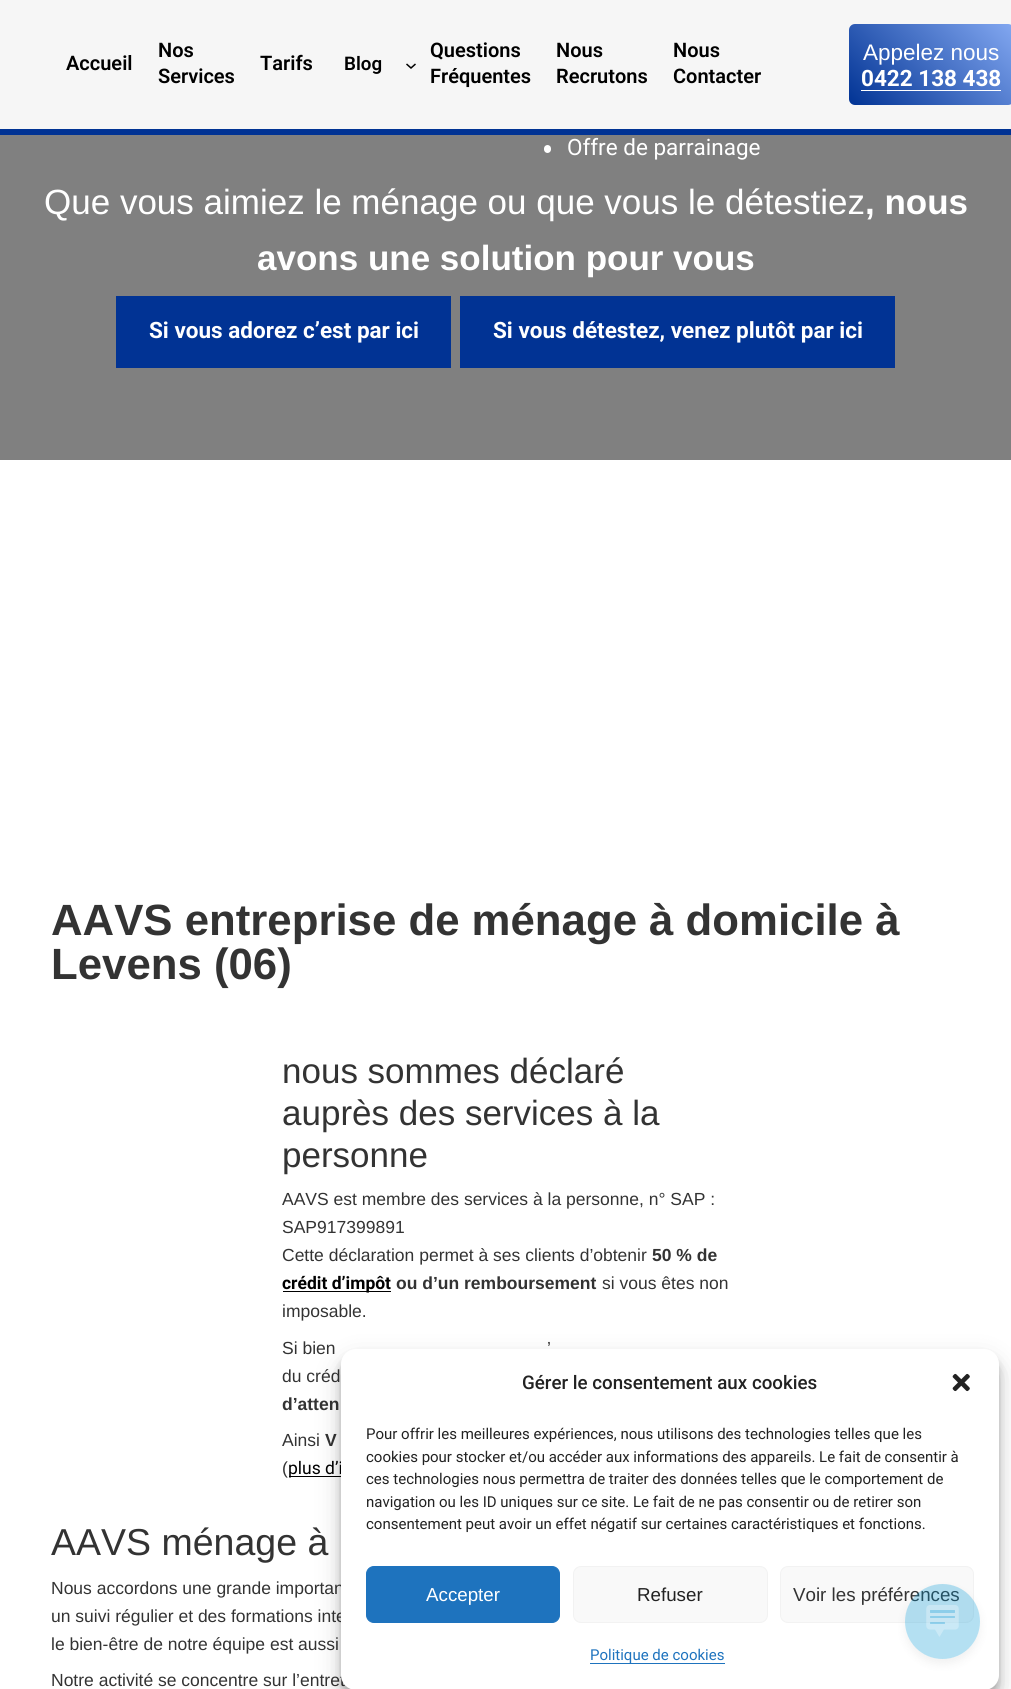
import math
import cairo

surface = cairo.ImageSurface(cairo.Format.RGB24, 1011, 1689)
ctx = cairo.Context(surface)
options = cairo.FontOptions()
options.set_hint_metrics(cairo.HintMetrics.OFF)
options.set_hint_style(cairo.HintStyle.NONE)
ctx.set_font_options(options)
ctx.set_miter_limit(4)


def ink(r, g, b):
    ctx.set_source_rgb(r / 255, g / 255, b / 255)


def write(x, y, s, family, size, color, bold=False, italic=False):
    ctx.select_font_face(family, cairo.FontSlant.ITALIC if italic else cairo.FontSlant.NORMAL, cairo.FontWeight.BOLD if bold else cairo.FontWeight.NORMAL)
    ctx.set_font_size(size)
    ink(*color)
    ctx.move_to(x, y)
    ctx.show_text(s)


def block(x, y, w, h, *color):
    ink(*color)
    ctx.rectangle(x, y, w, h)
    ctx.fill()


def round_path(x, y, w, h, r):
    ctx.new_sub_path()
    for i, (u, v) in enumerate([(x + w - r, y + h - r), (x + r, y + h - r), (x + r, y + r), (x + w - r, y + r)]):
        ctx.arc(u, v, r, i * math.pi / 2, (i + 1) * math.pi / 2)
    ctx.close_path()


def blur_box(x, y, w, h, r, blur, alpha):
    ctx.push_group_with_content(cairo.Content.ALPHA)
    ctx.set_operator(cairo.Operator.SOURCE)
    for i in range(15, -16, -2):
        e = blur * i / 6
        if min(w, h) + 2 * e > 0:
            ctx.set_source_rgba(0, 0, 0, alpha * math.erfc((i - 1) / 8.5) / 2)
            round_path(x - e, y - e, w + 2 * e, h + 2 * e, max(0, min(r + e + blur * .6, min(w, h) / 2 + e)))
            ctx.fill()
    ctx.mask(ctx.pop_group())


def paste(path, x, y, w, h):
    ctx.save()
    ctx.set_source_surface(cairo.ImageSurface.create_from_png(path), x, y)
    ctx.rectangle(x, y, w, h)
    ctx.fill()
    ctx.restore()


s1 = dict(family="Roboto SemiBold", size=20, color=(0, 0, 0))
s2 = dict(family="Roboto SemiBold", size=18.75, color=(0, 0, 0))
s3 = dict(family="Liberation Sans", size=22.5, color=(255, 255, 255))
s4 = dict(family="Roboto", size=22.5, color=(255, 255, 255), bold=True)
s5 = dict(family="Roboto", size=22.5, color=(255, 255, 255))
s6 = dict(family="Liberation Sans", size=35, color=(255, 255, 255))
s7 = dict(family="Liberation Sans", size=35, color=(255, 255, 255), bold=True)
s8 = dict(family="Liberation Sans", size=43.75, color=(51, 51, 51), bold=True)
s9 = dict(family="Liberation Sans", size=35, color=(51, 51, 51))
s10 = dict(family="Liberation Sans", size=17.5, color=(51, 51, 51))
s11 = dict(family="Liberation Sans", size=17.5, color=(51, 51, 51), bold=True)
s12 = dict(family="Roboto", size=17.5, color=(0, 0, 0), bold=True)
s13 = dict(family="Roboto", size=17.5, color=(0, 0, 0))
s14 = dict(family="Liberation Sans", size=37.5, color=(51, 51, 51))
s15 = dict(family="Roboto Medium", size=18.75, color=(34, 34, 34))
s16 = dict(family="Roboto", size=15, color=(34, 34, 34))
s17 = dict(family="Liberation Sans", size=18.75, color=(255, 255, 255))
s18 = dict(family="Liberation Sans", size=18.75, color=(34, 34, 34))
s19 = dict(family="Liberation Sans", size=18.75, color=(51, 51, 51))
s20 = dict(family="Roboto", size=15, color=(30, 115, 190))

ink(255, 255, 255)
ctx.paint()
block(0, 0, 1011, 129, 246, 246, 246)
block(0, 129, 1011, 6, 1, 51, 148)
write(66, 70, "Accueil", **s1)
write(158, 57, "Nos", **s1)
write(158, 83, "Services", **s1)
write(260, 70, "Tarifs", **s1)
write(344, 70, "Blog", **s2)
ctx.new_path()
ctx.move_to(406.5, 64)
ctx.line_to(411, 68)
ctx.line_to(415.5, 64)
ctx.set_line_width(1.5)
ctx.stroke()
write(430, 57, "Questions", **s1)
write(430, 83, "Fréquentes", **s1)
write(556, 57, "Nous", **s1)
write(556, 83, "Recrutons", **s1)
write(673, 57, "Nous", **s1)
write(673, 83, "Contacter", **s1)
gradient = cairo.LinearGradient(870, 126, 993, 2.8)
gradient.add_color_stop_rgba(0, 0.004, 0.2, 0.58, 1)
gradient.add_color_stop_rgba(1, 0.514, 0.659, 0.945, 1)
ctx.set_source(gradient)
round_path(849, 24, 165, 81, 6)
ctx.fill()
write(863, 60, "Appelez nous", **s3)
write(861, 86, "0422 138 438", **s4)
block(861, 90, 140, 1, 255, 255, 255)
block(0, 135, 1011, 325, 128, 128, 128)
ink(255, 255, 255)
round_path(544, 145, 7, 8, 3.5)
ctx.fill()
write(567, 155, "Offre de parrainage", **s5)
write(44, 214, "Que vous aimiez le ménage ou que vous le détestiez", **s6)
write(865, 214, ", nous", **s7)
write(257, 270, "avons une solution pour vous", **s7)
block(116, 296, 335, 72, 1, 51, 148)
write(149, 338, "Si vous adorez c’est par ici", **s4)
block(460, 296, 435, 72, 1, 51, 148)
write(493, 338, "Si vous détestez, venez plutôt par ici", **s4)
write(51, 935, "AAVS entreprise de ménage à domicile à", **s8)
write(51, 979, "Levens (06)", **s8)
write(282, 1083, "nous sommes déclaré", **s9)
write(282, 1125, "auprès des services à la", **s9)
write(282, 1167, "personne", **s9)
write(282, 1205, "AAVS est membre des services à la personne, n° SAP :", **s10)
write(282, 1233, "SAP917399891", **s10)
write(282, 1261, "Cette déclaration permet à ses clients d’obtenir", **s10)
write(652, 1261, "50 % de", **s11)
block(283, 1291, 108, 1, 0, 0, 0)
write(282, 1289, "crédit d’impôt", **s12)
write(396, 1289, "ou d’un remboursement", **s11)
write(602, 1289, "si vous êtes non", **s10)
write(282, 1317, "imposable.", **s10)
write(282, 1354, "Si bien", **s10)
write(547, 1354, "’", **s10)
write(282, 1382, "du créd", **s10)
write(282, 1410, "d’atten", **s11)
write(282, 1446, "Ainsi", **s10)
write(325, 1446, "V", **s11)
write(282, 1474, "(", **s10)
block(289, 1476, 52, 1, 0, 0, 0)
write(288, 1474, "plus d’i", **s13)
write(51, 1555, "AAVS ménage à", **s14)
write(51, 1594, "Nous accordons une grande importan", **s10)
write(51, 1622, "un suivi régulier et des formations inte", **s10)
write(51, 1650, "le bien-être de notre équipe est aussi", **s10)
write(51, 1686, "Notre activité se concentre sur l’entret", **s10)
ink(0, 0, 0)
blur_box(341, 1356, 658, 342, 15, 4, 0.23)
blur_box(341, 1361, 658, 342, 15, 12.5, 0.19)
ink(255, 255, 255)
round_path(341, 1349, 658, 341, 15)
ctx.fill()
write(522, 1389, "Gérer le consentement aux cookies", **s15)
paste("pic1.png", 952, 1373, 18, 19)
write(366, 1439, "Pour offrir les meilleures expériences, nous utilisons des technologies telles que les", **s16)
write(366, 1462, "cookies pour stocker et/ou accéder aux informations des appareils. Le fait de consentir à", **s16)
write(366, 1484, "ces technologies nous permettra de traiter des données telles que le comportement de", **s16)
write(366, 1507, "navigation ou les ID uniques sur ce site. Le fait de ne pas consentir ou de retirer son", **s16)
write(366, 1529, "consentement peut avoir un effet négatif sur certaines caractéristiques et fonctions.", **s16)
ink(30, 115, 190)
round_path(366.5, 1566.5, 193, 56, 7.5)
ctx.fill_preserve()
ctx.set_line_width(1)
ctx.stroke()
write(426, 1601, "Accepter", **s17)
ink(249, 249, 249)
round_path(573.5, 1566.5, 194, 56, 7.5)
ctx.fill_preserve()
ink(242, 242, 242)
ctx.stroke()
write(637, 1601, "Refuser", **s18)
ink(249, 249, 249)
round_path(780.5, 1566.5, 193, 56, 7.5)
ctx.fill_preserve()
ink(242, 242, 242)
ctx.stroke()
write(793, 1601, "Voir les préférences", **s19)
block(590, 1663, 135, 1, 30, 115, 190)
write(590, 1660, "Politique de cookies", **s20)
ctx.save()
ctx.set_fill_rule(cairo.FillRule.EVEN_ODD)
ctx.new_path()
ctx.move_to(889, 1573)
ctx.line_to(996, 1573)
ctx.line_to(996, 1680)
ctx.line_to(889, 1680)
ctx.close_path()
ctx.move_to(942.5, 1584)
ctx.curve_to(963, 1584, 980, 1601, 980, 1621.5)
ctx.curve_to(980, 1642, 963, 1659, 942.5, 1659)
ctx.curve_to(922, 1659, 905, 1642, 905, 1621.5)
ctx.curve_to(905, 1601, 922, 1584, 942.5, 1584)
ctx.close_path()
ctx.clip()
ink(0, 0, 0)
blur_box(905, 1589, 75, 75, 37.5, 5, 0.06)
ctx.restore()
ctx.set_source_rgba(0.02, 0.588, 0.831, 0.3)
ctx.arc(942.5, 1621.5, 37.5, 0, 2 * math.pi)
ctx.fill()
paste("pic2.png", 926, 1605, 33, 32)
surface.write_to_png("screenshot.png")
